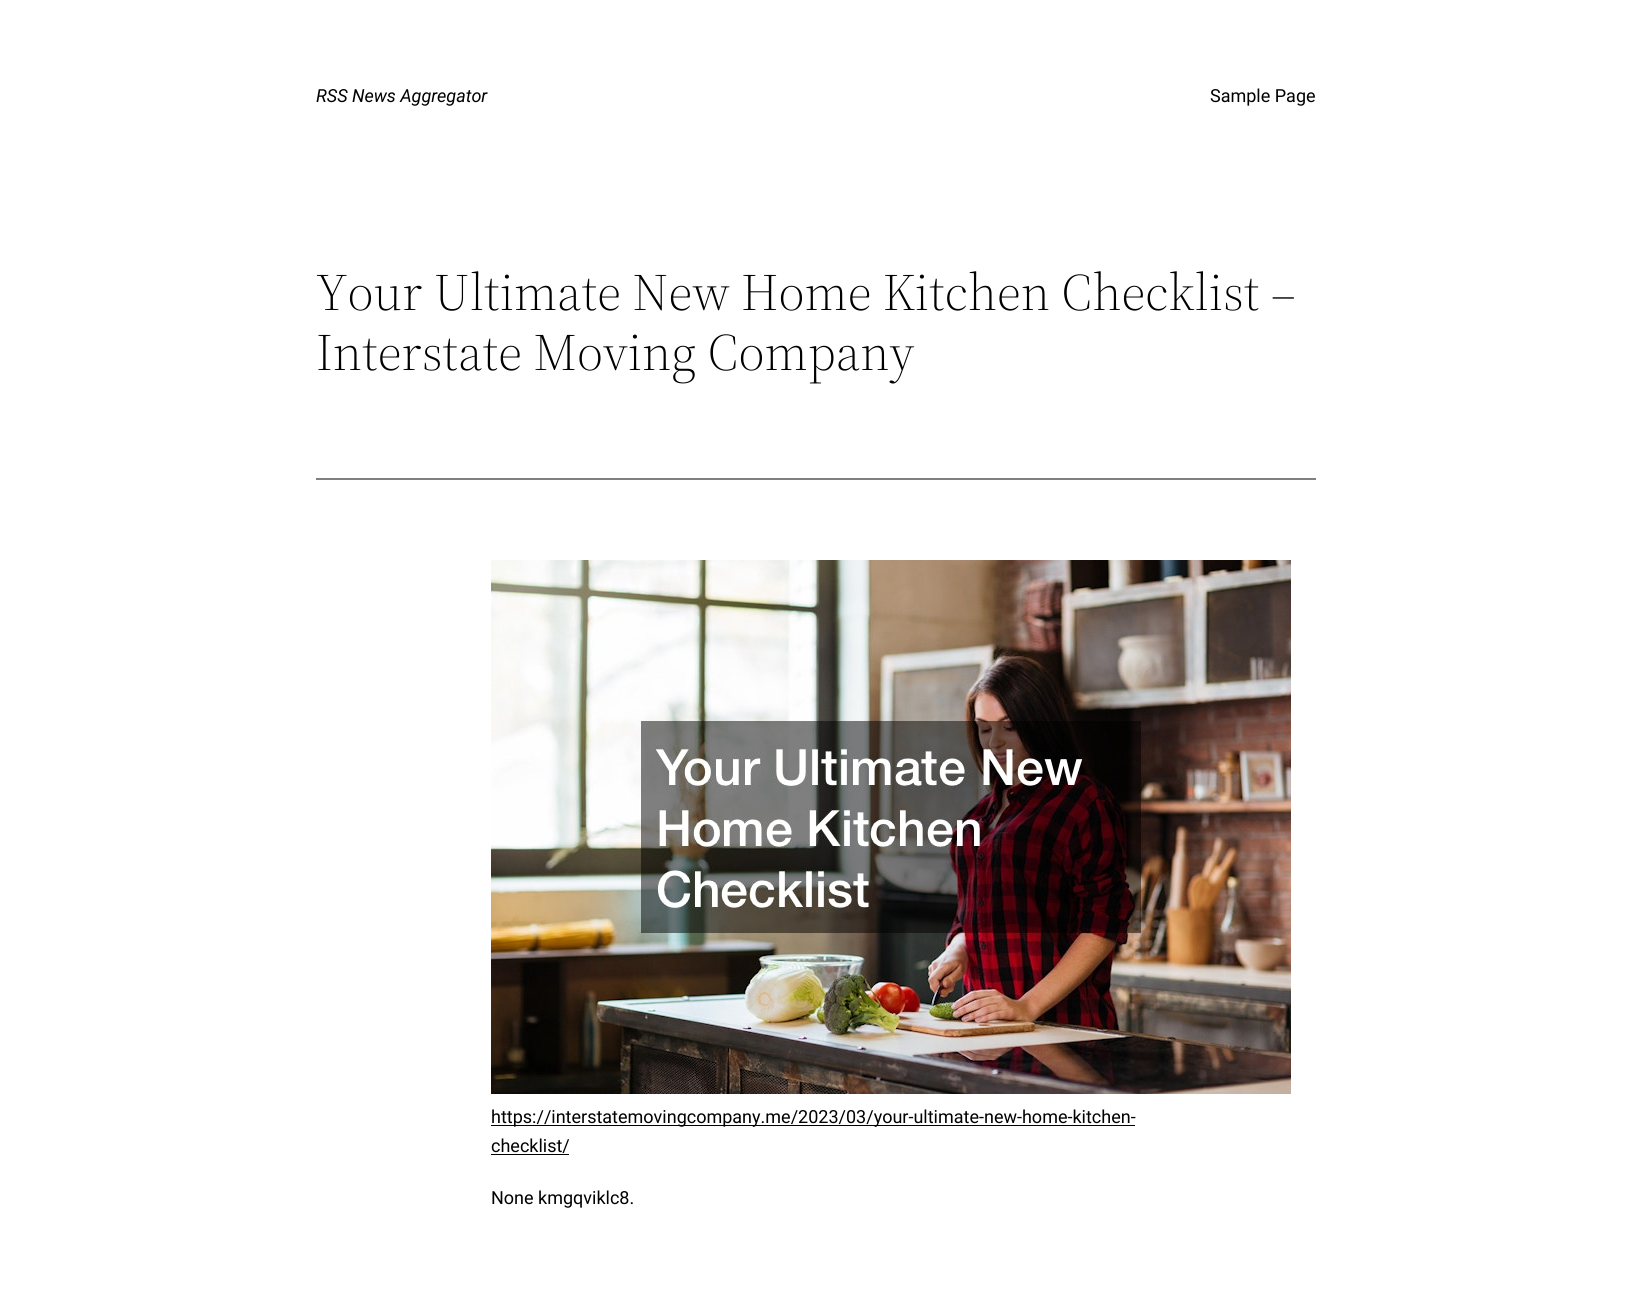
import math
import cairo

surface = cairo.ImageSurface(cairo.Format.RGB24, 1631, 1291)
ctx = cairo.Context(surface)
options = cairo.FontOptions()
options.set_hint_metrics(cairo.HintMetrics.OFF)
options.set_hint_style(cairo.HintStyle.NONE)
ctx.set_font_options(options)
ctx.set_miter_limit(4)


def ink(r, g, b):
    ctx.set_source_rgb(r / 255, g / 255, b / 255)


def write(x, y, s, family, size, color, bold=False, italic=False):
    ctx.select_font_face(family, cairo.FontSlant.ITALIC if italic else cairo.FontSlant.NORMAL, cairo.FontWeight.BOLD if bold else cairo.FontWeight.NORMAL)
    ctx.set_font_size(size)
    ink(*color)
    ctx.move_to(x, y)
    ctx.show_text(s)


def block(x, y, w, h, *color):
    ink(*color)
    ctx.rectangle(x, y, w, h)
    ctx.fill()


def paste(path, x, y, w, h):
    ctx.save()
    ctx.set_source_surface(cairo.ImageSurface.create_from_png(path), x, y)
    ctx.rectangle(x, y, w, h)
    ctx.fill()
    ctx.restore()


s1 = dict(family="Roboto", size=18, color=(0, 0, 0), italic=True)
s2 = dict(family="Roboto", size=18, color=(0, 0, 0))
s3 = dict(family="Source Serif 4 Light", size=52, color=(0, 0, 0))

ink(255, 255, 255)
ctx.paint()
write(316, 102, "RSS News Aggregator", **s1)
write(1210, 102, "Sample Page", **s2)
write(316, 310, "Your Ultimate New Home Kitchen Checklist –", **s3)
write(316, 370, "Interstate Moving Company", **s3)
block(316, 478, 1000, 2, 128, 128, 128)
paste("pic1.png", 491, 560, 800, 534)
block(491, 1125, 644, 1, 0, 0, 0)
write(491, 1123, "https://interstatemovingcompany.me/2023/03/your-ultimate-new-home-kitchen-", **s2)
write(491, 1152, "checklist/", **s2)
block(491, 1154, 78, 1, 0, 0, 0)
write(491, 1204, "None kmgqviklc8.", **s2)
surface.write_to_png("screenshot.png")
